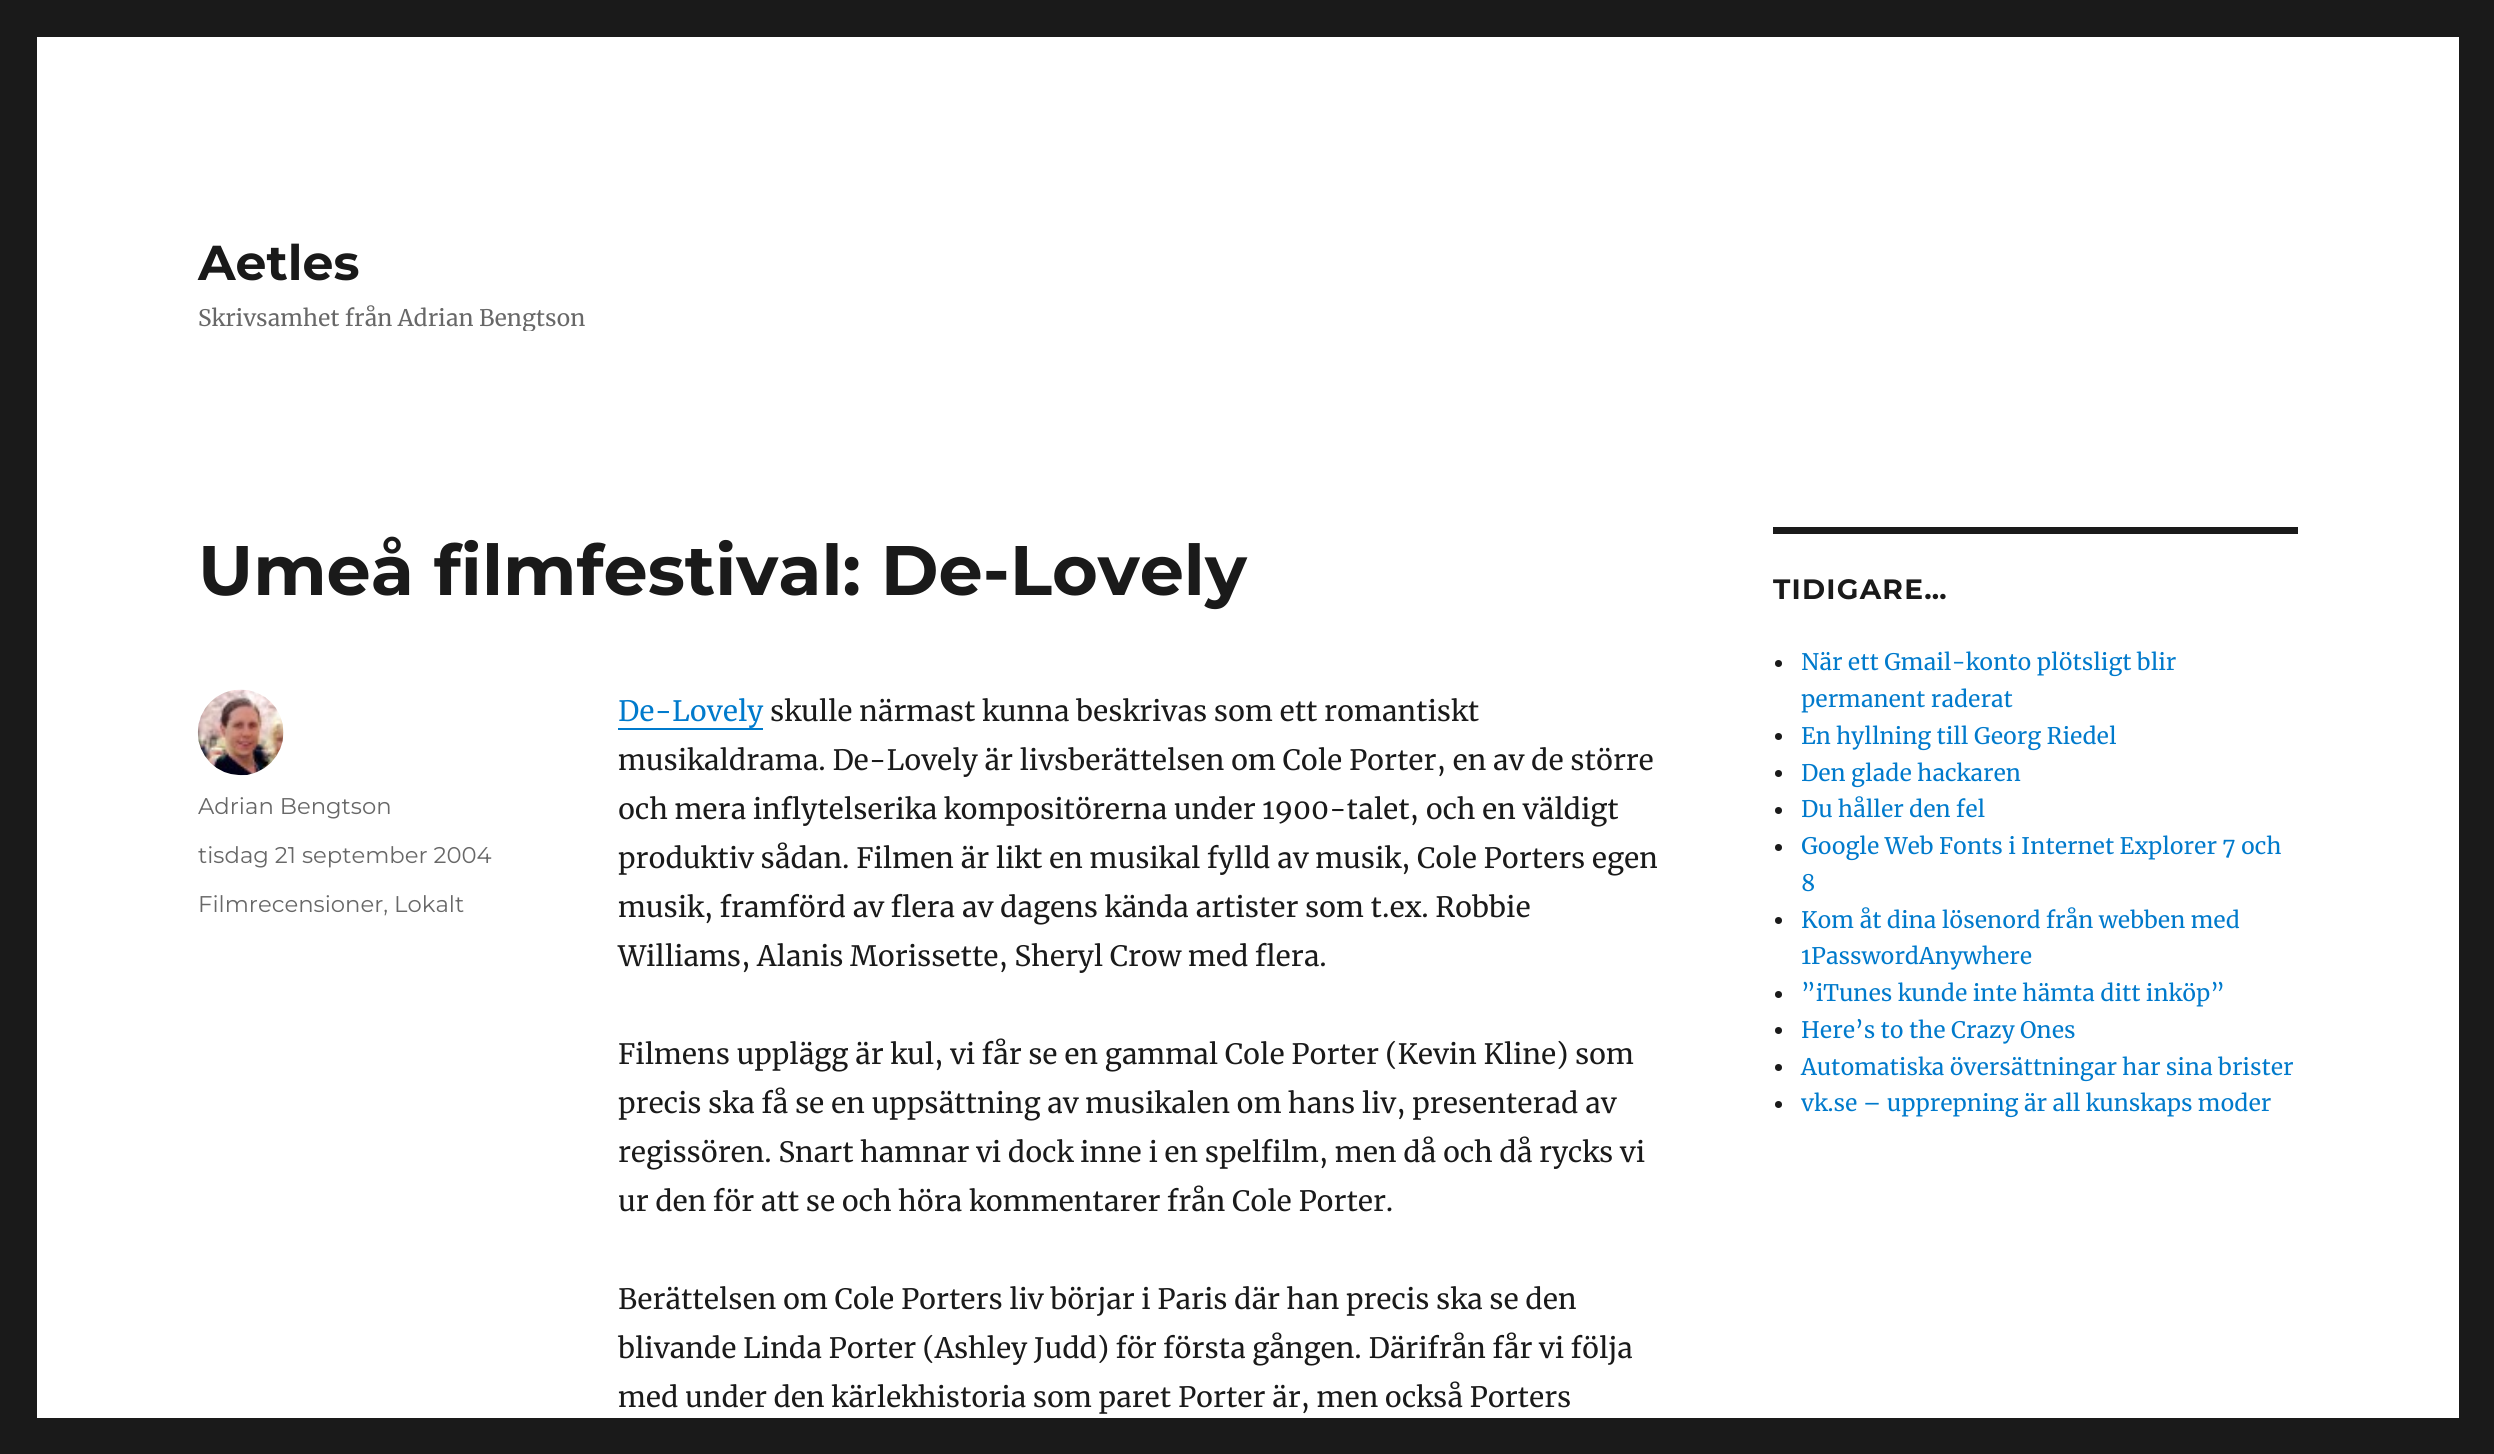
import math
import cairo

surface = cairo.ImageSurface(cairo.Format.RGB24, 2494, 1454)
ctx = cairo.Context(surface)
options = cairo.FontOptions()
options.set_hint_metrics(cairo.HintMetrics.OFF)
options.set_hint_style(cairo.HintStyle.NONE)
ctx.set_font_options(options)
ctx.set_miter_limit(4)


def ink(r, g, b):
    ctx.set_source_rgb(r / 255, g / 255, b / 255)


def write(x, y, s, family, size, color, bold=False, italic=False):
    ctx.select_font_face(family, cairo.FontSlant.ITALIC if italic else cairo.FontSlant.NORMAL, cairo.FontWeight.BOLD if bold else cairo.FontWeight.NORMAL)
    ctx.set_font_size(size)
    ink(*color)
    ctx.move_to(x, y)
    ctx.show_text(s)


def write_spaced(x, y, s, letter, word):
    ctx.move_to(x, y)
    for ch in s:
        ctx.show_text(ch)
        ctx.rel_move_to(letter + word * (ch == ' '), 0)


def block(x, y, w, h, *color):
    ink(*color)
    ctx.rectangle(x, y, w, h)
    ctx.fill()


def paste(path, x, y, w, h):
    ctx.save()
    ctx.set_source_surface(cairo.ImageSurface.create_from_png(path), x, y)
    ctx.rectangle(x, y, w, h)
    ctx.fill()
    ctx.restore()


s1 = dict(family="Montserrat Thin", size=49, color=(26, 26, 26))
s2 = dict(family="Merriweather", size=22.75, color=(104, 104, 104))
s3 = dict(family="Montserrat Thin", size=70, color=(26, 26, 26))
s4 = dict(family="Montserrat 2 Thin", size=22.75, color=(104, 104, 104))
s5 = dict(family="Merriweather", size=28, color=(0, 122, 204))
s6 = dict(family="Merriweather", size=28, color=(26, 26, 26))
s7 = dict(family="Merriweather", size=22.75, color=(0, 122, 204))

ink(26, 26, 26)
ctx.paint()
block(37, 37, 2422, 1381, 255, 255, 255)
write(198, 280, "Aetles", **s1)
ctx.save()
ctx.rectangle(198, 233, 387, 98)
ctx.clip()
write(198, 326, "Skrivsamhet från Adrian Bengtson", **s2)
ctx.restore()
write(198, 595, "Umeå filmfestival: De-Lovely", **s3)
paste("pic1.png", 197, 689, 87, 87)
write(198, 814, "Adrian Bengtson", **s4)
write(198, 863, "tisdag 21 september 2004", **s4)
write(198, 912, "Filmrecensioner, Lokalt", **s4)
write(618, 721, "De-Lovely", **s5)
block(618, 728, 145, 2, 0, 122, 204)
write(770, 721, "skulle närmast kunna beskrivas som ett romantiskt", **s6)
write(618, 770, "musikaldrama. De-Lovely är livsberättelsen om Cole Porter, en av de större", **s6)
write(618, 819, "och mera inflytelserika kompositörerna under 1900-talet, och en väldigt", **s6)
write(618, 868, "produktiv sådan. Filmen är likt en musikal fylld av musik, Cole Porters egen", **s6)
write(618, 917, "musik, framförd av flera av dagens kända artister som t.ex. Robbie", **s6)
write(618, 966, "Williams, Alanis Morissette, Sheryl Crow med flera.", **s6)
write(618, 1064, "Filmens upplägg är kul, vi får se en gammal Cole Porter (Kevin Kline) som", **s6)
write(618, 1113, "precis ska få se en uppsättning av musikalen om hans liv, presenterad av", **s6)
write(618, 1162, "regissören. Snart hamnar vi dock inne i en spelfilm, men då och då rycks vi", **s6)
write(618, 1211, "ur den för att se och höra kommentarer från Cole Porter.", **s6)
write(618, 1309, "Berättelsen om Cole Porters liv börjar i Paris där han precis ska se den", **s6)
write(618, 1358, "blivande Linda Porter (Ashley Judd) för första gången. Därifrån får vi följa", **s6)
write(618, 1407, "med under den kärlekhistoria som paret Porter är, men också Porters", **s6)
block(1773, 527, 525, 7, 26, 26, 26)
ctx.select_font_face("Montserrat Thin")
write_spaced(1773, 599, "TIDIGARE…", 1.25, 0)
ctx.new_path()
ctx.arc(1778.5, 663.5, 3.5, 0, 2 * math.pi)
ctx.fill()
write(1801, 670, "När ett Gmail-konto plötsligt blir", **s7)
write(1801, 707, "permanent raderat", **s7)
ink(26, 26, 26)
ctx.new_path()
ctx.arc(1778.5, 736.5, 3.5, 0, 2 * math.pi)
ctx.fill()
write(1801, 744, "En hyllning till Georg Riedel", **s7)
ink(26, 26, 26)
ctx.new_path()
ctx.arc(1778.5, 773.5, 3.5, 0, 2 * math.pi)
ctx.fill()
write(1801, 781, "Den glade hackaren", **s7)
ink(26, 26, 26)
ctx.new_path()
ctx.arc(1778.5, 810.5, 3.5, 0, 2 * math.pi)
ctx.fill()
write(1801, 817, "Du håller den fel", **s7)
ink(26, 26, 26)
ctx.new_path()
ctx.arc(1778.5, 847.5, 3.5, 0, 2 * math.pi)
ctx.fill()
write(1801, 854, "Google Web Fonts i Internet Explorer 7 och", **s7)
write(1801, 891, "8", **s7)
ink(26, 26, 26)
ctx.new_path()
ctx.arc(1778.5, 920.5, 3.5, 0, 2 * math.pi)
ctx.fill()
write(1801, 928, "Kom åt dina lösenord från webben med", **s7)
write(1801, 964, "1PasswordAnywhere", **s7)
ink(26, 26, 26)
ctx.new_path()
ctx.arc(1778.5, 994.5, 3.5, 0, 2 * math.pi)
ctx.fill()
write(1801, 1001, "”iTunes kunde inte hämta ditt inköp”", **s7)
ink(26, 26, 26)
ctx.new_path()
ctx.arc(1778.5, 1030.5, 3.5, 0, 2 * math.pi)
ctx.fill()
write(1801, 1038, "Here’s to the Crazy Ones", **s7)
ink(26, 26, 26)
ctx.new_path()
ctx.arc(1778.5, 1067.5, 3.5, 0, 2 * math.pi)
ctx.fill()
write(1801, 1075, "Automatiska översättningar har sina brister", **s7)
ink(26, 26, 26)
ctx.new_path()
ctx.arc(1778.5, 1104.5, 3.5, 0, 2 * math.pi)
ctx.fill()
write(1801, 1111, "vk.se – upprepning är all kunskaps moder", **s7)
surface.write_to_png("screenshot.png")
